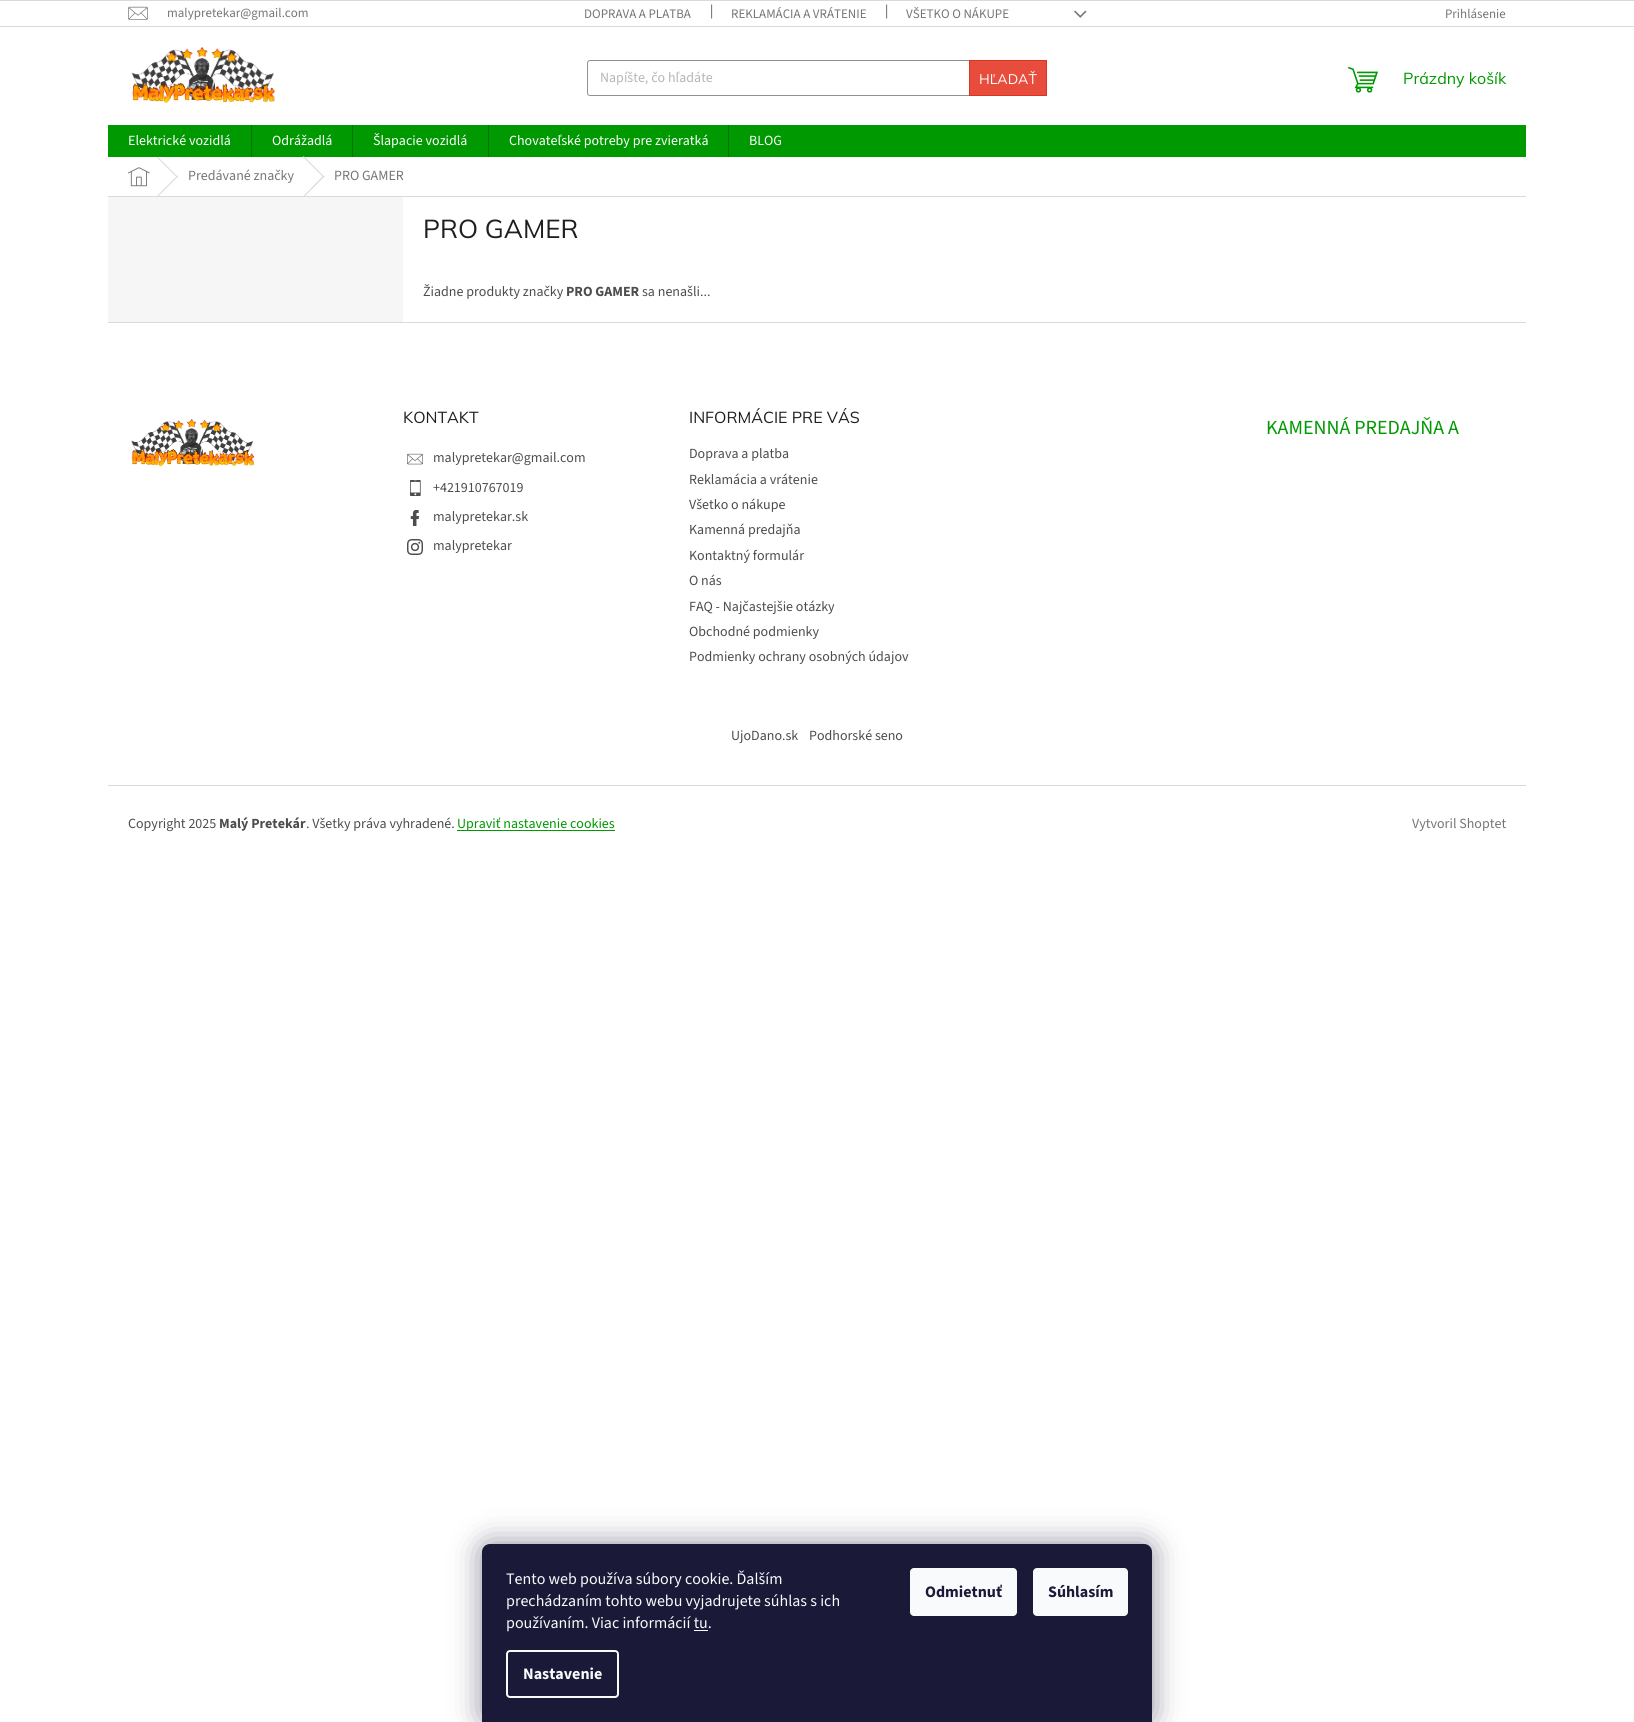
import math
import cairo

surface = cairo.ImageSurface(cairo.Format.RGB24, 1634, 1722)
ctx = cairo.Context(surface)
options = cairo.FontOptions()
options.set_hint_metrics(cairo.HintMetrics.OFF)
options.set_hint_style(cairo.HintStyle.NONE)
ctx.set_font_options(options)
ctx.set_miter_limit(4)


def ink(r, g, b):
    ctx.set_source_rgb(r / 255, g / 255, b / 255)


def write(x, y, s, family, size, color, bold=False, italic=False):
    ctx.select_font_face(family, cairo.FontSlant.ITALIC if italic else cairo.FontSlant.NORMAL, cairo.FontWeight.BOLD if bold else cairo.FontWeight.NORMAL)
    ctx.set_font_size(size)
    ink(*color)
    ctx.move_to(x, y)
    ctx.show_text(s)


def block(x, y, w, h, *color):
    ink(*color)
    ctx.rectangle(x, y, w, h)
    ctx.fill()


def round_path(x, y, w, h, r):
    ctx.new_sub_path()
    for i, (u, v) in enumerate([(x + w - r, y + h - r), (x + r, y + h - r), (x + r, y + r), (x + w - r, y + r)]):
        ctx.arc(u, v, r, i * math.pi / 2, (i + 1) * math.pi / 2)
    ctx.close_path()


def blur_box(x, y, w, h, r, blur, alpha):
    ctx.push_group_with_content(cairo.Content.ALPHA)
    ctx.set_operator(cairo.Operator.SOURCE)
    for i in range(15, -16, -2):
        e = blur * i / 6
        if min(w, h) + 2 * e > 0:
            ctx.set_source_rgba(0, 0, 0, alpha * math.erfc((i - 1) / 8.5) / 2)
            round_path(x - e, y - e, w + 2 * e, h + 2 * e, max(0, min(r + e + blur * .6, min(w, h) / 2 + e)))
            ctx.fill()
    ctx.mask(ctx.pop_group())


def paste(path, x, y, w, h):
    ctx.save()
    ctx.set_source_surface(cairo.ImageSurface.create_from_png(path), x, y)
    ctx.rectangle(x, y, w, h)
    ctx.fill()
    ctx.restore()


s1 = dict(family="Source Sans 3", size=13, color=(118, 118, 118))
s2 = dict(family="Source Sans 3", size=14, color=(77, 77, 77))
s3 = dict(family="Source Sans 3", size=14, color=(182, 182, 182))
s4 = dict(family="Mulish", size=14, color=(255, 255, 255))
s5 = dict(family="Mulish", size=16, color=(0, 153, 1))
s6 = dict(family="Source Sans 3", size=14, color=(255, 255, 255))
s7 = dict(family="Source Sans 3", size=14, color=(118, 118, 118))
s8 = dict(family="Mulish", size=26, color=(31, 31, 31))
s9 = dict(family="Source Sans 3", size=14, color=(77, 77, 77), bold=True)
s10 = dict(family="Mulish", size=16, color=(31, 31, 31))
s11 = dict(family="Source Sans 3", size=20, color=(0, 153, 1))
s12 = dict(family="Source Sans 3", size=14, color=(0, 153, 1))
s13 = dict(family="Source Sans 3", size=16, color=(248, 250, 251))
s14 = dict(family="Source Sans 3", size=16, color=(248, 250, 251), bold=True)
s15 = dict(family="Source Sans 3", size=16, color=(26, 25, 55), bold=True)

ink(255, 255, 255)
ctx.paint()
block(0, 0, 1634, 1, 218, 218, 218)
block(0, 26, 1634, 1, 218, 218, 218)
paste("pic1.png", 128, 6, 20, 14)
write(167, 17, "malypretekar@gmail.com", **s1)
write(584, 18, "DOPRAVA A PLATBA", **s1)
write(710, 15, "|", **s2)
write(731, 18, "REKLAMÁCIA A VRÁTENIE", **s1)
write(885, 15, "|", **s2)
write(906, 18, "VŠETKO O NÁKUPE", **s1)
paste("pic2.png", 1074, 10, 13, 8)
write(1445, 18, "Prihlásenie", **s1)
paste("pic3.png", 131, 47, 145, 56)
round_path(587.5, 60.5, 459, 35, 2.5)
ink(145, 145, 145)
ctx.set_line_width(1)
ctx.stroke()
write(600, 82, "Napíšte, čo hľadáte", **s3)
ink(231, 76, 60)
ctx.rectangle(969.5, 60.5, 77, 35)
ctx.fill_preserve()
ink(217, 54, 33)
ctx.stroke()
write(979, 84, "HĽADAŤ", **s4)
paste("pic4.png", 1348, 67, 30, 26)
write(1403, 84, "Prázdny košík", **s5)
block(108, 125, 1418, 32, 0, 153, 1)
write(128, 145, "Elektrické vozidlá", **s6)
block(251, 125, 1, 32, 0, 117, 0)
write(272, 145, "Odrážadlá", **s6)
block(352, 125, 1, 32, 0, 117, 0)
write(373, 145, "Šlapacie vozidlá", **s6)
block(488, 125, 1, 32, 0, 117, 0)
write(509, 145, "Chovateľské potreby pre zvieratká", **s6)
block(728, 125, 1, 32, 0, 117, 0)
write(749, 145, "BLOG", **s6)
block(108, 196, 1418, 1, 218, 218, 218)
paste("pic5.png", 128, 167, 22, 20)
ctx.new_path()
ctx.move_to(157, 157.5)
ctx.line_to(158, 157)
ctx.line_to(178, 177)
ctx.line_to(177, 177.5)
ctx.close_path()
ctx.fill()
ctx.new_path()
ctx.move_to(177, 176)
ctx.line_to(178, 176.5)
ctx.line_to(158, 196.5)
ctx.line_to(157, 196)
ctx.close_path()
ctx.fill()
write(188, 180, "Predávané značky", **s7)
ink(218, 218, 218)
ctx.new_path()
ctx.move_to(303, 157)
ctx.line_to(303.5, 156)
ctx.line_to(324.5, 177)
ctx.line_to(323.5, 177.5)
ctx.close_path()
ctx.fill()
block(108, 197, 295, 125, 246, 246, 246)
ink(218, 218, 218)
ctx.new_path()
ctx.move_to(323.5, 175.5)
ctx.line_to(324.5, 176.5)
ctx.line_to(303.5, 197.5)
ctx.line_to(303, 196.5)
ctx.close_path()
ctx.fill()
write(334, 180, "PRO GAMER", **s7)
write(423, 238, "PRO GAMER", **s8)
write(423, 296, "Žiadne produkty značky", **s2)
write(566, 296, "PRO GAMER", **s9)
write(642, 296, "sa nenašli...", **s2)
paste("pic6.png", 131, 418, 124, 48)
block(108, 322, 1418, 1, 218, 218, 218)
write(403, 423, "KONTAKT", **s10)
paste("pic7.png", 407, 453, 16, 12)
write(433, 462, "malypretekar@gmail.com", **s2)
paste("pic8.png", 410, 480, 11, 16)
write(433, 492, "+421910767019", **s2)
paste("pic9.png", 410, 510, 10, 16)
write(433, 521, "malypretekar.sk", **s2)
paste("pic10.png", 407, 539, 16, 16)
write(433, 550, "malypretekar", **s2)
write(689, 423, "INFORMÁCIE PRE VÁS", **s10)
write(689, 458, "Doprava a platba", **s2)
write(689, 484, "Reklamácia a vrátenie", **s2)
write(689, 509, "Všetko o nákupe", **s2)
write(689, 534, "Kamenná predajňa", **s2)
write(689, 560, "Kontaktný formulár", **s2)
write(689, 585, "O nás", **s2)
write(689, 611, "FAQ - Najčastejšie otázky", **s2)
write(689, 636, "Obchodné podmienky", **s2)
write(689, 661, "Podmienky ochrany osobných údajov", **s2)
write(1266, 434, "KAMENNÁ PREDAJŇA A", **s11)
write(731, 740, "UjoDano.sk", **s2)
write(809, 740, "Podhorské seno", **s2)
block(108, 785, 1418, 1, 218, 218, 218)
write(128, 828, "Copyright 2025", **s2)
write(219, 828, "Malý Pretekár", **s9)
write(306, 828, ". Všetky práva vyhradené.", **s2)
block(457, 830, 158, 1, 0, 153, 1)
write(457, 828, "Upraviť nastavenie cookies", **s12)
write(1412, 828, "Vytvoril Shoptet", **s7)
ink(27, 25, 57)
blur_box(482, 1544, 670, 178, 8, 15, 0.5)
ink(26, 25, 55)
ctx.new_path()
ctx.move_to(490, 1544)
ctx.line_to(1144, 1544)
ctx.curve_to(1148.5, 1544, 1152, 1547.5, 1152, 1552)
ctx.line_to(1152, 1722)
ctx.line_to(482, 1722)
ctx.line_to(482, 1552)
ctx.curve_to(482, 1547.5, 485.5, 1544, 490, 1544)
ctx.close_path()
ctx.fill()
write(506, 1584, "Tento web používa súbory cookie. Ďalším", **s13)
write(506, 1606, "prechádzaním tohto webu vyjadrujete súhlas s ich", **s13)
write(506, 1628, "používaním. Viac informácií tu.", **s13)
block(694, 1630, 14, 1, 248, 250, 251)
round_path(507, 1651, 111, 46, 3)
ctx.set_line_width(2)
ctx.stroke()
write(523, 1679, "Nastavenie", **s14)
round_path(910, 1568, 107, 48, 4)
ctx.fill()
write(925, 1597, "Odmietnuť", **s15)
ink(248, 250, 251)
round_path(1033, 1568, 95, 48, 4)
ctx.fill()
write(1048, 1597, "Súhlasím", **s15)
surface.write_to_png("screenshot.png")
